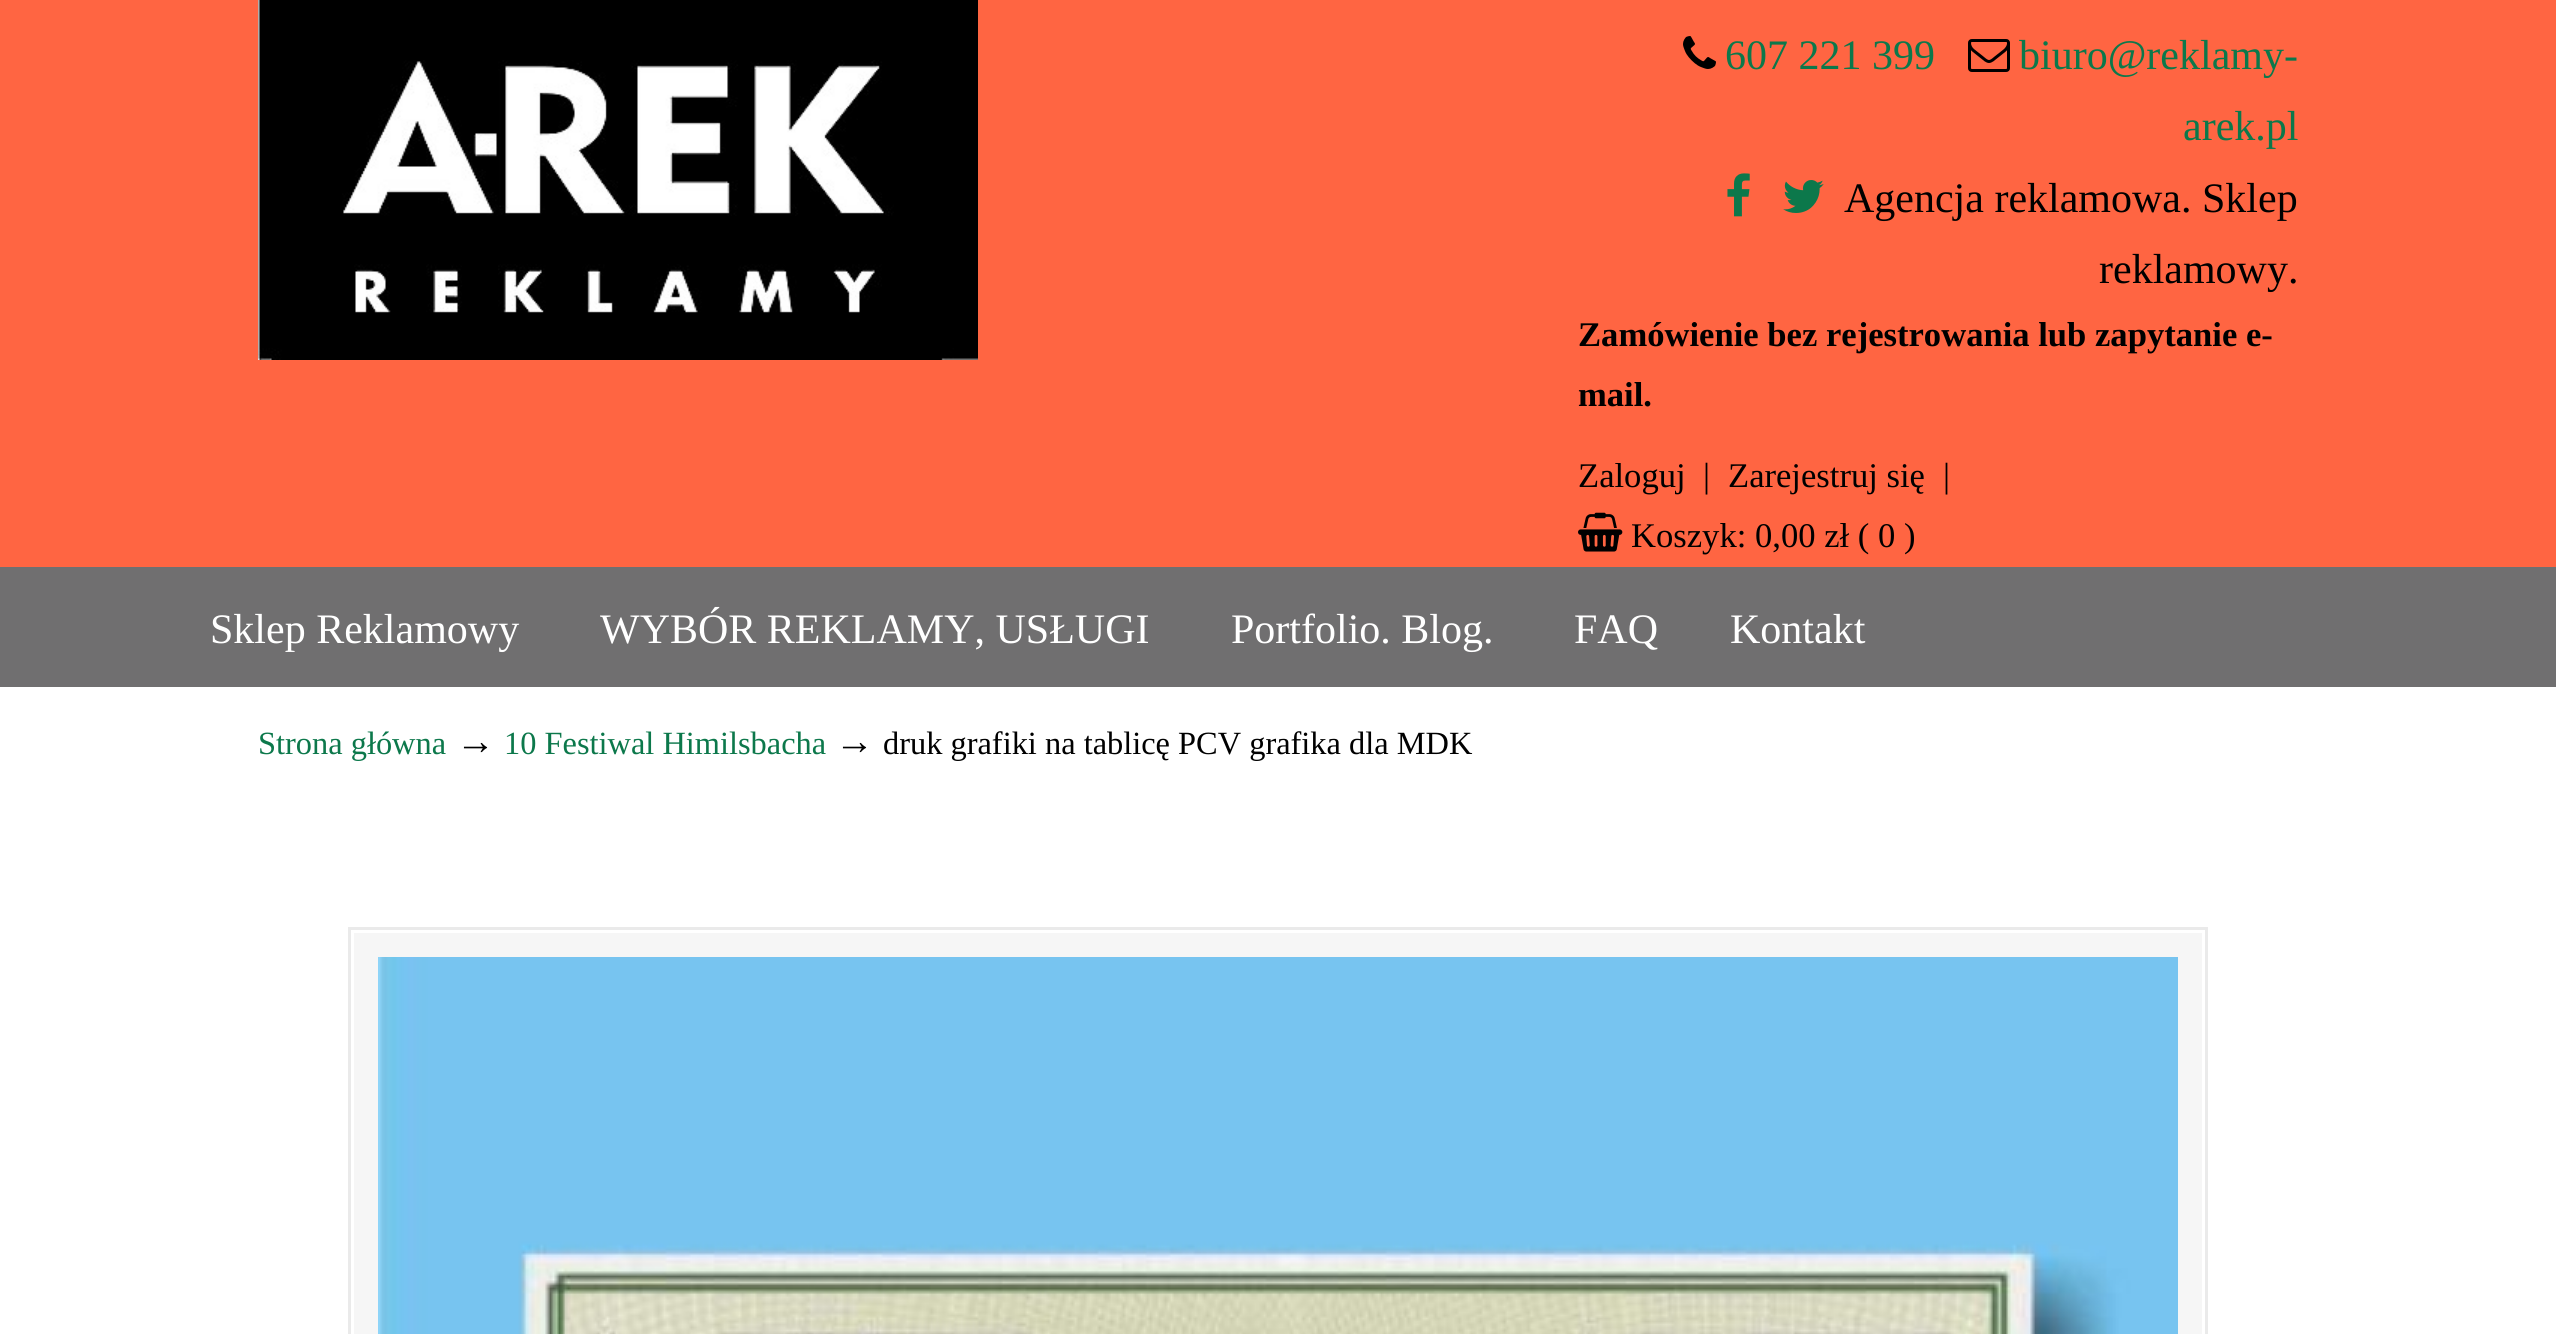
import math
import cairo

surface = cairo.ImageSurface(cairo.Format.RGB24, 2556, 1334)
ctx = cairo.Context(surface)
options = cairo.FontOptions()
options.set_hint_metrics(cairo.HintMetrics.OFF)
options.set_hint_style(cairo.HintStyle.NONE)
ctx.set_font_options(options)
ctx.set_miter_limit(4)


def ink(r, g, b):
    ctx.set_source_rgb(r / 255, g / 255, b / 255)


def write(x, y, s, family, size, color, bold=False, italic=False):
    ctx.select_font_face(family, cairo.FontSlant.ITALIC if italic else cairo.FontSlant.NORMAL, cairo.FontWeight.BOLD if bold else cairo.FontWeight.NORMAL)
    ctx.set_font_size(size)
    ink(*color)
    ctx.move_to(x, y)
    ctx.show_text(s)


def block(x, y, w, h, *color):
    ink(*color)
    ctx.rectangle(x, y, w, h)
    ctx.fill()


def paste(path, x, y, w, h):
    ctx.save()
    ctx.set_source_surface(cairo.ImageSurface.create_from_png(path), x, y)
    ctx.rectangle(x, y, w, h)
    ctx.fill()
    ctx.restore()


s1 = dict(family="Liberation Serif", size=42, color=(12, 120, 75))
s2 = dict(family="Liberation Serif", size=42, color=(0, 0, 0))
s3 = dict(family="Liberation Serif", size=34.6, color=(0, 0, 0), bold=True)
s4 = dict(family="Liberation Serif", size=34.6, color=(0, 0, 0))
s5 = dict(family="Liberation Serif", size=35, color=(0, 0, 0))
s6 = dict(family="Liberation Serif", size=42, color=(255, 255, 255))
s7 = dict(family="Liberation Serif", size=32.4, color=(12, 120, 75))
s8 = dict(family="Liberation Serif", size=39, color=(0, 0, 0))
s9 = dict(family="Liberation Serif", size=32.4, color=(0, 0, 0))

ink(255, 255, 255)
ctx.paint()
block(0, 0, 2556, 567, 255, 101, 66)
paste("pic1.png", 258, 0, 720, 360)
paste("pic2.png", 1683, 36, 33, 33)
write(1725, 69, "607 221 399", **s1)
paste("pic3.png", 1968, 39, 42, 33)
write(2019, 69, "biuro@reklamy-", **s1)
write(2183, 140, "arek.pl", **s1)
paste("pic4.png", 1727, 173, 23, 44)
paste("pic5.png", 1783, 180, 41, 33)
write(1844, 212, "Agencja reklamowa. Sklep", **s2)
write(2099, 283, "reklamowy.", **s2)
write(1578, 346, "Zamówienie bez rejestrowania lub zapytanie e-", **s3)
write(1578, 406, "mail.", **s3)
write(1578, 487, "Zaloguj", **s4)
write(1703, 487, "|", **s5)
write(1728, 487, "Zarejestruj się", **s4)
write(1943, 487, "|", **s5)
paste("pic6.png", 1578, 512, 45, 40)
write(1631, 547, "Koszyk: 0,00 zł ( 0 )", **s4)
block(0, 567, 2556, 120, 112, 111, 112)
write(210, 643, "Sklep Reklamowy", **s6)
write(600, 643, "WYBÓR REKLAMY, USŁUGI", **s6)
write(1231, 643, "Portfolio. Blog.", **s6)
write(1574, 643, "FAQ", **s6)
write(1730, 643, "Kontakt", **s6)
write(258, 754, "Strona główna", **s7)
write(456, 754, "→", **s8)
write(504, 754, "10 Festiwal Himilsbacha", **s7)
write(835, 754, "→", **s8)
write(883, 754, "druk grafiki na tablicę PCV grafika dla MDK", **s9)
block(354, 933, 1848, 401, 246, 246, 246)
ctx.rectangle(349.5, 928.5, 1857, 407)
ink(234, 234, 234)
ctx.set_line_width(3)
ctx.stroke()
paste("pic7.png", 378, 957, 1800, 377)
surface.write_to_png("screenshot.png")
